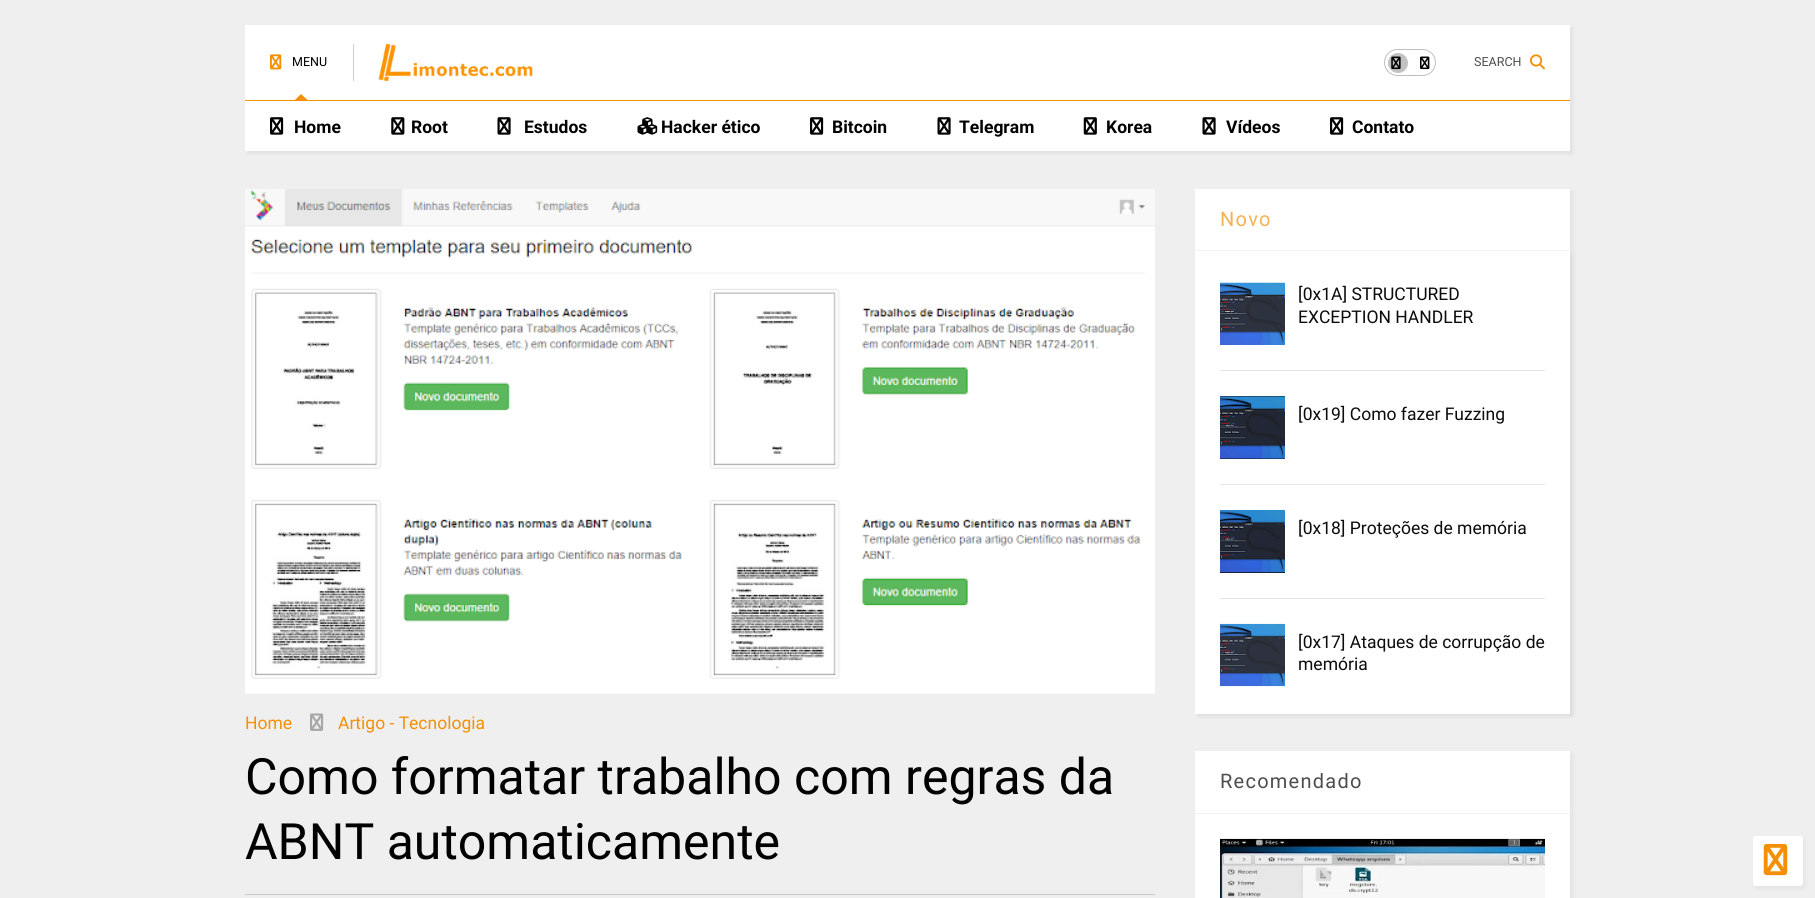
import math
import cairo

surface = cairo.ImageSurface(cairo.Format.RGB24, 1815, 898)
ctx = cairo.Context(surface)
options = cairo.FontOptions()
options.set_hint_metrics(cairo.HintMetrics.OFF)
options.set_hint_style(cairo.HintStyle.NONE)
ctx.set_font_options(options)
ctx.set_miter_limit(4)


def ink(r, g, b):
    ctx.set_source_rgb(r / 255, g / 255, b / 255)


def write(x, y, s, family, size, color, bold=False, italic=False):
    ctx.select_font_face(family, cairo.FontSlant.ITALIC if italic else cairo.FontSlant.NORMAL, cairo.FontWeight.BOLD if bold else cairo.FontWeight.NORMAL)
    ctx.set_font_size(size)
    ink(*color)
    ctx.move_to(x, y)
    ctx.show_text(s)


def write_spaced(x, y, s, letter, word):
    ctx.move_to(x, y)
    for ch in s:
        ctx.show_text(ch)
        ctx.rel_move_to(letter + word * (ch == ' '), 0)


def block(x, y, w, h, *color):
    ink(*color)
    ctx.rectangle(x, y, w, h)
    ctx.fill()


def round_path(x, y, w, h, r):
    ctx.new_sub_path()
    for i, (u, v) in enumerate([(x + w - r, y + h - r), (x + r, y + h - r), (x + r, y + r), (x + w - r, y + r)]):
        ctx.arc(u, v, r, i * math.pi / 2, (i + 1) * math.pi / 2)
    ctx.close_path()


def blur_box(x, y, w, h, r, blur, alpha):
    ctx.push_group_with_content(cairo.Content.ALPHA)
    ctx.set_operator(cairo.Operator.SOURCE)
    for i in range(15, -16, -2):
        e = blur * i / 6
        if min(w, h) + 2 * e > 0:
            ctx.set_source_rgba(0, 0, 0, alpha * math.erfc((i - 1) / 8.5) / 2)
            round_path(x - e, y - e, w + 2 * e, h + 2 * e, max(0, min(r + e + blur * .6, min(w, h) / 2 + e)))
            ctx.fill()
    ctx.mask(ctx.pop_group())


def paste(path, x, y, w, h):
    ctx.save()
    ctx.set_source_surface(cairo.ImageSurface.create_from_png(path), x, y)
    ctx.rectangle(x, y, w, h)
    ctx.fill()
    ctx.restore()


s1 = dict(family="Roboto", size=12.5, color=(0, 0, 0))
s2 = dict(family="Roboto", size=12.5, color=(77, 77, 77))
s3 = dict(family="Roboto", size=17.5, color=(0, 0, 0), bold=True)
s4 = dict(family="Roboto", size=17.5, color=(243, 144, 6))
s5 = dict(family="Roboto", size=50, color=(0, 0, 0))
s6 = dict(family="Roboto", size=17.5, color=(11, 11, 11))

ink(239, 239, 239)
ctx.paint()
ink(120, 120, 120)
blur_box(248, 28, 1325, 126, 0, 2, 0.12)
block(245, 25, 1325, 126, 255, 255, 255)
paste("pic1.png", 270, 54, 12, 16)
write(292, 66, "MENU", **s1)
ink(243, 144, 6)
ctx.new_path()
ctx.move_to(307.5, 100)
ctx.line_to(295, 100)
ctx.line_to(301, 94)
ctx.close_path()
ctx.fill()
block(353, 44, 1, 37, 207, 207, 207)
paste("pic2.png", 378, 43, 155, 39)
round_path(1384.5, 49.5, 51, 26, 13)
ink(191, 191, 191)
ctx.set_line_width(1)
ctx.stroke()
ink(194, 194, 194)
ctx.arc(1398, 63, 10, 0, 2 * math.pi)
ctx.fill()
paste("pic3.png", 1391, 56, 10, 14)
paste("pic4.png", 1420, 56, 10, 14)
write(1474, 66, "SEARCH", **s2)
paste("pic5.png", 1530, 54, 15, 16)
block(245, 100, 1325, 1, 243, 144, 6)
paste("pic6.png", 270, 117, 14, 18)
write(294, 133, "Home", **s3)
paste("pic7.png", 391, 117, 14, 18)
write(411, 133, "Root", **s3)
paste("pic8.png", 497, 117, 14, 18)
write(524, 133, "Estudos", **s3)
paste("pic9.png", 637, 117, 21, 18)
write(661, 133, "Hacker ético", **s3)
paste("pic6.png", 810, 117, 14, 18)
write(832, 133, "Bitcoin", **s3)
paste("pic8.png", 937, 117, 14, 18)
write(959, 133, "Telegram", **s3)
paste("pic10.png", 1083, 117, 14, 18)
write(1106, 133, "Korea", **s3)
paste("pic8.png", 1202, 117, 14, 18)
write(1226, 133, "Vídeos", **s3)
paste("pic6.png", 1330, 117, 14, 18)
write(1352, 133, "Contato", **s3)
paste("pic11.png", 245, 189, 910, 505)
write(245, 729, "Home", **s4)
paste("pic12.png", 310, 713, 14, 18)
write(338, 729, "Artigo - Tecnologia", **s4)
write(245, 794, "Como formatar trabalho com regras da", **s5)
write(245, 859, "ABNT automaticamente", **s5)
block(245, 894, 910, 1, 199, 199, 199)
ink(0, 0, 0)
blur_box(1198, 191, 375, 525, 0, 2, 0.05)
block(1195, 189, 375, 61, 255, 255, 255)
ink(0, 0, 0)
blur_box(1198, 254, 375, 462, 0, 2, 0.05)
block(1195, 250, 375, 1, 243, 243, 243)
ctx.set_font_size(20)
ink(247, 177, 81)
write_spaced(1220, 226, "Novo", 1.25, 0)
block(1195, 251, 375, 463, 255, 255, 255)
paste("pic13.png", 1220, 282, 65, 63)
write(1298, 300, "[0x1A] STRUCTURED", **s6)
write(1298, 323, "EXCEPTION HANDLER", **s6)
block(1220, 370, 325, 1, 229, 229, 229)
block(1220, 396, 65, 63, 11, 11, 11)
paste("pic14.png", 1220, 396, 65, 63)
write(1298, 420, "[0x19] Como fazer Fuzzing", **s6)
block(1220, 484, 325, 1, 229, 229, 229)
block(1220, 510, 65, 63, 11, 11, 11)
paste("pic15.png", 1220, 510, 65, 63)
write(1298, 534, "[0x18] Proteções de memória", **s6)
block(1220, 598, 325, 1, 229, 229, 229)
paste("pic16.png", 1220, 623, 65, 64)
write(1298, 648, "[0x17] Ataques de corrupção de", **s6)
write(1298, 670, "memória", **s6)
ink(0, 0, 0)
blur_box(1198, 754, 375, 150, 0, 2, 0.05)
block(1195, 751, 375, 147, 255, 255, 255)
block(1195, 813, 375, 1, 242, 242, 242)
ctx.set_font_size(20)
ink(77, 77, 77)
write_spaced(1220, 788, "Recomendado", 1.25, 0)
paste("pic17.png", 1220, 838, 325, 60)
ink(0, 0, 0)
blur_box(1755, 839, 50, 50, 2.5, 2, 0.05)
ink(255, 255, 255)
round_path(1753, 836, 50, 50, 2.5)
ctx.fill()
paste("pic18.png", 1763, 843, 25, 33)
surface.write_to_png("screenshot.png")
